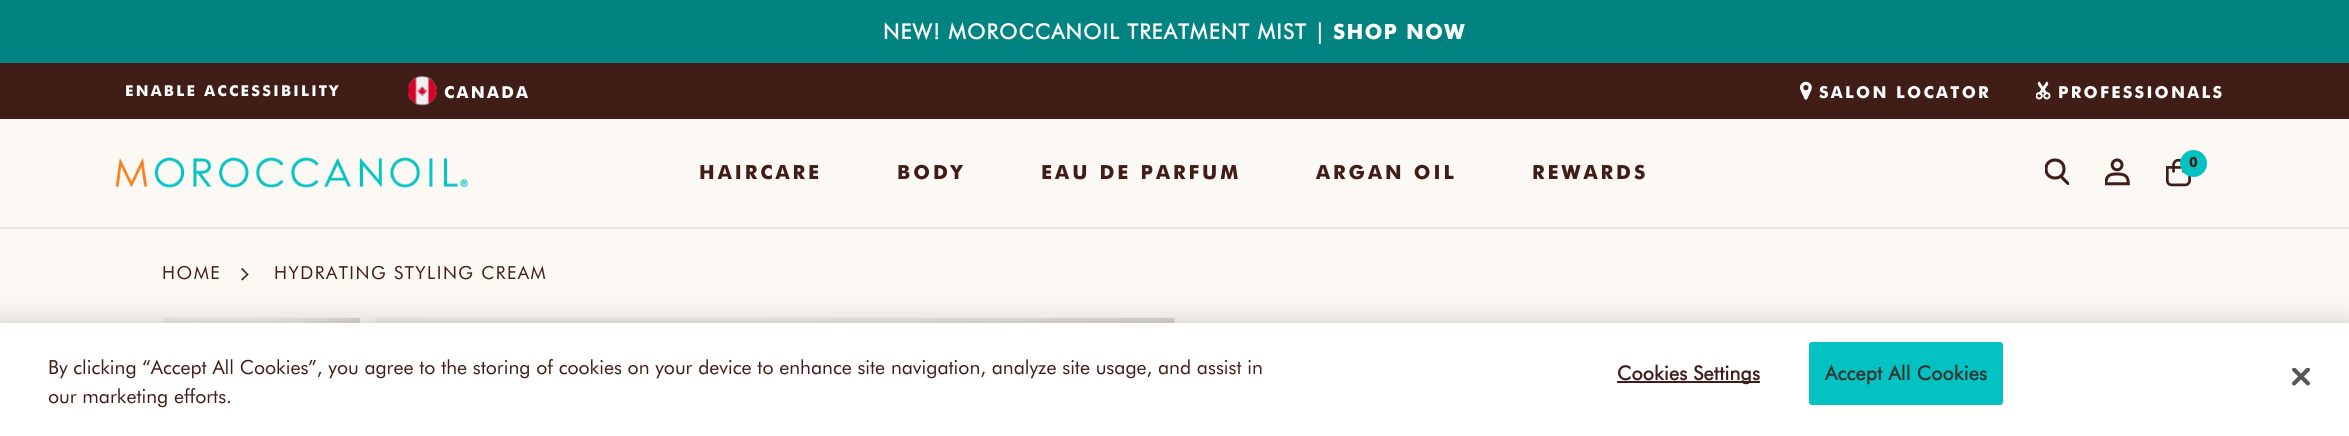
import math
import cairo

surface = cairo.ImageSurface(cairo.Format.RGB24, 2349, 436)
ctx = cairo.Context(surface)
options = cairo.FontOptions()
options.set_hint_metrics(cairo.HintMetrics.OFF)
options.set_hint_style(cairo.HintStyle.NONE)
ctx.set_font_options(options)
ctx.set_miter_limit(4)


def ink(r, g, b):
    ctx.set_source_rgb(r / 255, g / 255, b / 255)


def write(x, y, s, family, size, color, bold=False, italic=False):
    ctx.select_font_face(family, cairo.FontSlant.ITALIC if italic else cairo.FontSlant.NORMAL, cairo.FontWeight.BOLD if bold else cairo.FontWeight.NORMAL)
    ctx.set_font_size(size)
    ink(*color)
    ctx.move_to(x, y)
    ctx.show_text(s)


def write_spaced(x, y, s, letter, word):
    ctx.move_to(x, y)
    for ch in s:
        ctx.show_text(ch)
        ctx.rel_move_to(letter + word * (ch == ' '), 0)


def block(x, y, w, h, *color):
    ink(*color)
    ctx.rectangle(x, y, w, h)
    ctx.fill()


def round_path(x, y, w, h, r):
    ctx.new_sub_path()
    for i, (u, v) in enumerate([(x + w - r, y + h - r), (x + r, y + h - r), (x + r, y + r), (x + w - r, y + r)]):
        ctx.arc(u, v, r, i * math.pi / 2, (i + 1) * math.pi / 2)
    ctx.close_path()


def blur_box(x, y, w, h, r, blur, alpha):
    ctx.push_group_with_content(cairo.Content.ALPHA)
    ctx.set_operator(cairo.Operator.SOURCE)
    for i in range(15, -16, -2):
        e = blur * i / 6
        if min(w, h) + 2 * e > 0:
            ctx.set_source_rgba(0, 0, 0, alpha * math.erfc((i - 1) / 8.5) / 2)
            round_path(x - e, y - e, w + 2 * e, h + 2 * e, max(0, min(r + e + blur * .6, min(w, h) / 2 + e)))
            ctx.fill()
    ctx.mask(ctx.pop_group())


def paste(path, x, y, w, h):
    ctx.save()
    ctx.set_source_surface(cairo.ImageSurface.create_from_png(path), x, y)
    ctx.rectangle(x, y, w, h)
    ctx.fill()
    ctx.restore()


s1 = dict(family="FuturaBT", size=19.5, color=(64, 30, 23))

ink(252, 248, 244)
ctx.paint()
block(0, 0, 2349, 63, 1, 131, 130)
ctx.select_font_face("FuturaBT", cairo.FontSlant.NORMAL, cairo.FontWeight.BOLD)
ctx.set_font_size(21)
ink(255, 255, 255)
write_spaced(883, 39, "NEW! MOROCCANOIL TREATMENT MIST |", 1.2, 0)
ctx.select_font_face("FuturaBT Black")
write_spaced(1333, 39, "SHOP NOW", 1.2, 0)
block(0, 63, 2349, 56, 64, 30, 23)
ctx.set_font_size(15)
ink(255, 255, 255)
write_spaced(125, 96, "ENABLE ACCESSIBILITY", 2.25, 0)
paste("pic1.png", 408, 76, 29, 30)
ctx.set_font_size(16.5)
write_spaced(444, 98, "CANADA", 2.25, 0)
paste("pic2.png", 1800, 81, 12, 19)
write_spaced(1819, 98, "SALON LOCATOR", 2.25, 0)
paste("pic3.png", 2036, 81, 15, 19)
write_spaced(2058, 98, "PROFESSIONALS", 2.25, 0)
block(0, 227, 2349, 2, 236, 229, 227)
paste("pic4.png", 115, 157, 353, 31)
ctx.set_font_size(19.5)
ink(64, 30, 23)
write_spaced(699, 179, "HAIRCARE", 3, 0)
write_spaced(897, 179, "BODY", 3, 0)
write_spaced(1041, 179, "EAU DE PARFUM", 3, 0)
write_spaced(1316, 179, "ARGAN OIL", 3, 0)
write_spaced(1532, 179, "REWARDS", 3, 0)
ctx.save()
ctx.rectangle(2045, 149, 24, 48)
ctx.clip()
ctx.new_path()
ctx.move_to(2061.5, 177)
ctx.line_to(2068, 183.5)
ctx.move_to(2064, 169)
ctx.curve_to(2064, 181, 2046, 181, 2046, 169)
ctx.curve_to(2046, 157, 2064, 157, 2064, 169)
ctx.close_path()
ctx.set_line_width(3.1)
ctx.set_line_cap(cairo.LineCap.ROUND)
ctx.stroke()
ctx.restore()
paste("pic5.png", 2105, 158, 25, 28)
paste("pic6.png", 2166, 158, 25, 29)
ink(2, 195, 194)
ctx.arc(2193.5, 163.5, 13.5, 0, 2 * math.pi)
ctx.fill()
ctx.set_font_size(14)
ink(64, 30, 23)
write_spaced(2189, 167, "0", -1, 0)
ctx.select_font_face("FuturaBT")
ctx.set_font_size(18)
write_spaced(162, 279, "HOME", 1.5, 0)
ctx.new_path()
ctx.move_to(242.5, 268)
ctx.line_to(248.5, 274.5)
ctx.line_to(247.5, 275.5)
ctx.line_to(241, 269)
ctx.close_path()
ctx.fill()
ctx.new_path()
ctx.move_to(247.5, 273.5)
ctx.line_to(248.5, 274.5)
ctx.line_to(242.5, 280.5)
ctx.line_to(241, 279.5)
ctx.close_path()
ctx.fill()
write_spaced(274, 279, "HYDRATING STYLING CREAM", 1.5, 0)
paste("pic7.png", 163, 318, 197, 5)
paste("pic8.png", 375, 318, 800, 5)
ink(0, 0, 0)
blur_box(0, 323, 2349, 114, 0, 13.5, 0.2)
block(0, 323, 2349, 113, 255, 255, 255)
write(48, 374, "By clicking “Accept All Cookies”, you agree to the storing of cookies on your device to enhance site navigation, analyze site usage, and assist in", **s1)
write(48, 403, "our marketing efforts.", **s1)
block(1617, 381, 143, 2, 64, 30, 23)
ctx.select_font_face("FuturaBT", cairo.FontSlant.NORMAL, cairo.FontWeight.BOLD)
write_spaced(1617, 380, "Cookies Settings", 0.25, 0)
ink(2, 195, 194)
round_path(1810, 343, 192, 61, 2)
ctx.fill_preserve()
ctx.stroke()
ink(51, 51, 51)
write_spaced(1825, 380, "Accept All Cookies", 0.25, 0)
paste("pic9.png", 2292, 368, 18, 18)
surface.write_to_png("screenshot.png")
